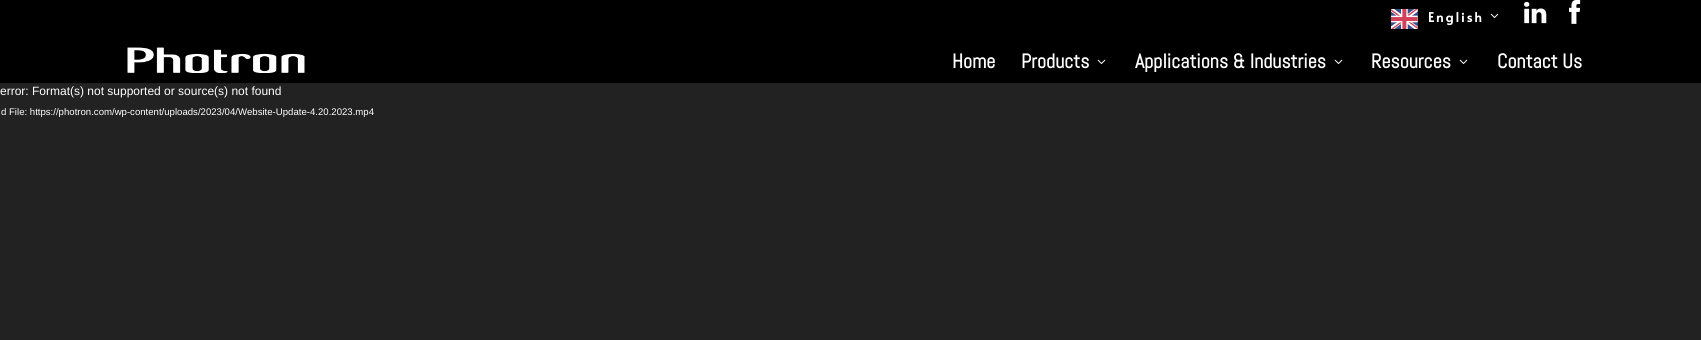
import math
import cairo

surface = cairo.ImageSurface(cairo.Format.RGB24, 1701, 340)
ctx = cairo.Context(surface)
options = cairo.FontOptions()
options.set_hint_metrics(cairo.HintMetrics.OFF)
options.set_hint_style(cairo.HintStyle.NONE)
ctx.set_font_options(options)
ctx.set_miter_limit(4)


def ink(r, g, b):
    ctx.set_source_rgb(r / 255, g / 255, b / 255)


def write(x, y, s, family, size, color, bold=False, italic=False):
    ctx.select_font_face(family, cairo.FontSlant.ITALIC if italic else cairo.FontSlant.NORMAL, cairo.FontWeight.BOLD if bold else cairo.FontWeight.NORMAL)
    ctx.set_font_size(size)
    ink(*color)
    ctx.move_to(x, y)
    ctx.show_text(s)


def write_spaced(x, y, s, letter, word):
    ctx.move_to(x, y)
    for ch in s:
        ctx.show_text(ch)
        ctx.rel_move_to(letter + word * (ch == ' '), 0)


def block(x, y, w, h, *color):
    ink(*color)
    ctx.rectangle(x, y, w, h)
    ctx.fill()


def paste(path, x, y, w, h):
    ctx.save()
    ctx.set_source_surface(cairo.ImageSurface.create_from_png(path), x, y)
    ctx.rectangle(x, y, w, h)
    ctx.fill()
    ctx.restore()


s1 = dict(family="Abel", size=20, color=(255, 255, 255), bold=True)
s2 = dict(family="Liberation Sans", size=12, color=(255, 255, 255))
s3 = dict(family="Liberation Sans", size=9.6, color=(255, 255, 255))

ink(34, 34, 34)
ctx.paint()
block(0, 0, 1701, 83, 0, 0, 0)
paste("pic1.png", 1391, 9, 27, 20)
ctx.select_font_face("Alata", cairo.FontSlant.NORMAL, cairo.FontWeight.BOLD)
ctx.set_font_size(13)
ink(255, 255, 255)
write_spaced(1428, 22, "English", 2, 0)
paste("pic2.png", 1490, 13, 9, 5)
paste("pic3.png", 1524, 1, 23, 23)
paste("pic4.png", 1569, 0, 12, 24)
block(0, 83, 1701, 1, 31, 31, 31)
paste("pic5.png", 127, 47, 178, 26)
write(952, 68, "Home", **s1)
write(1021, 68, "Products", **s1)
paste("pic2.png", 1097, 59, 9, 5)
write(1135, 68, "Applications & Industries", **s1)
paste("pic2.png", 1334, 59, 9, 5)
write(1371, 68, "Resources", **s1)
paste("pic2.png", 1459, 59, 9, 5)
write(1497, 68, "Contact Us", **s1)
write(0, 95, "error: Format(s) not supported or source(s) not found", **s2)
write(1, 115, "d File: https://photron.com/wp-content/uploads/2023/04/Website-Update-4.20.2023.mp4", **s3)
surface.write_to_png("screenshot.png")
